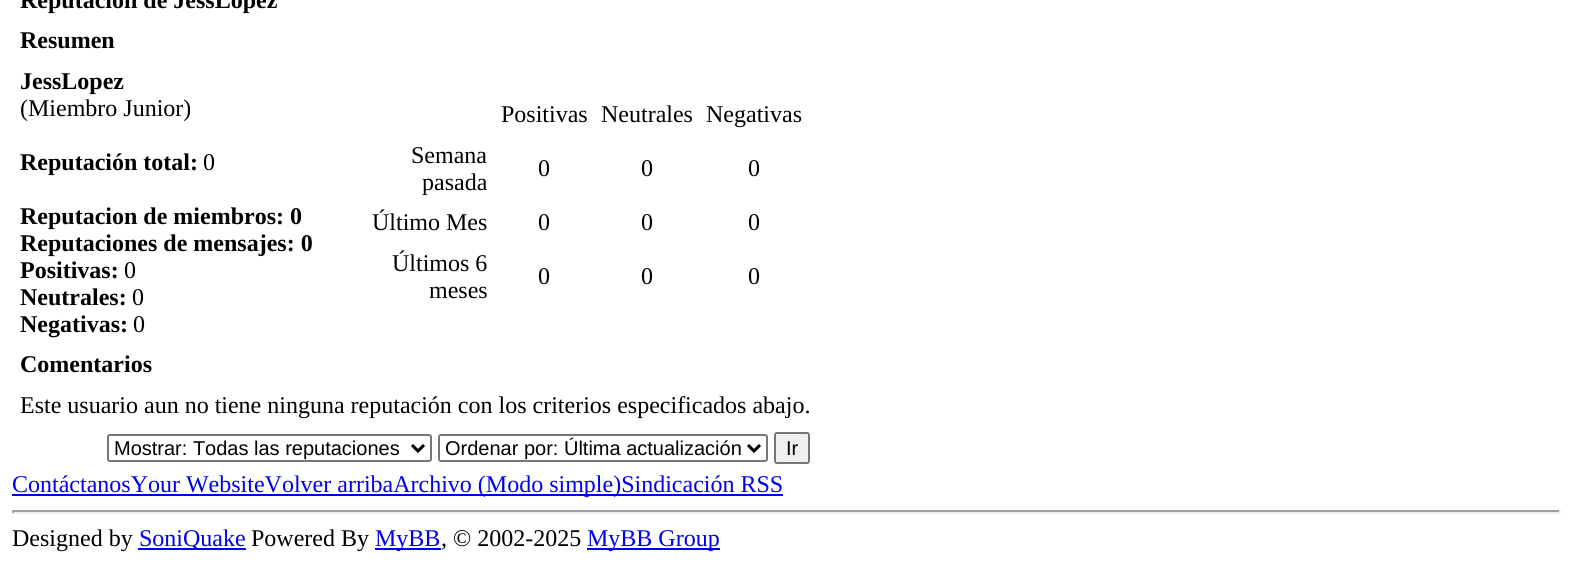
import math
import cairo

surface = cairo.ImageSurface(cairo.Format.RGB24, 1571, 563)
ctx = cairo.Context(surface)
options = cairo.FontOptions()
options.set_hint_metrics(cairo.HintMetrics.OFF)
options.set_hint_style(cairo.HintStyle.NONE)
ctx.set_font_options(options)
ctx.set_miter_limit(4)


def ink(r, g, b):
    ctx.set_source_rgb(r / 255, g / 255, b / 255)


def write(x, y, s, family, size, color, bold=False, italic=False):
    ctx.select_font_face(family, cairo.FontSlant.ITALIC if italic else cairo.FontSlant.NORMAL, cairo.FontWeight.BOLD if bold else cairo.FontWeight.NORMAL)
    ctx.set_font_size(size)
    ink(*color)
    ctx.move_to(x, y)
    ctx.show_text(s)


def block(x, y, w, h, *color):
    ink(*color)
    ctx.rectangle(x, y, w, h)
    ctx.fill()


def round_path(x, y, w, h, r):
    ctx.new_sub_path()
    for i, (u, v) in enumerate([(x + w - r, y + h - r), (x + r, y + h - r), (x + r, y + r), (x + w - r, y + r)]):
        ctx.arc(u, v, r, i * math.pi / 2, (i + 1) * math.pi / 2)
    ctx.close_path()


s1 = dict(family="Liberation Serif", size=24, color=(0, 0, 0), bold=True)
s2 = dict(family="Liberation Serif", size=24, color=(0, 0, 0))
s3 = dict(family="Liberation Sans", size=20, color=(0, 0, 0))
s4 = dict(family="Liberation Serif", size=24, color=(0, 0, 238))

ink(255, 255, 255)
ctx.paint()
write(20, 8, "Reputación de JessLopez", **s1)
write(20, 48, "Resumen", **s1)
write(20, 89, "JessLopez", **s1)
write(20, 116, "(Miembro Junior)", **s2)
write(20, 170, "Reputación total:", **s1)
write(203, 170, "0", **s2)
write(20, 224, "Reputacion de miembros: 0", **s1)
write(20, 251, "Reputaciones de mensajes: 0", **s1)
write(20, 278, "Positivas:", **s1)
write(124, 278, "0", **s2)
write(20, 305, "Neutrales:", **s1)
write(132, 305, "0", **s2)
write(20, 332, "Negativas:", **s1)
write(133, 332, "0", **s2)
write(501, 122, "Positivas", **s2)
write(601, 122, "Neutrales", **s2)
write(706, 122, "Negativas", **s2)
write(411, 163, "Semana", **s2)
write(422, 190, "pasada", **s2)
write(538, 176, "0", **s2)
write(641, 176, "0", **s2)
write(748, 176, "0", **s2)
write(372, 230, "Último Mes", **s2)
write(538, 230, "0", **s2)
write(641, 230, "0", **s2)
write(748, 230, "0", **s2)
write(392, 271, "Últimos 6", **s2)
write(429, 298, "meses", **s2)
write(538, 284, "0", **s2)
write(641, 284, "0", **s2)
write(748, 284, "0", **s2)
write(20, 372, "Comentarios", **s1)
write(20, 413, "Este usuario aun no tiene ninguna reputación con los criterios especificados abajo.", **s2)
round_path(108, 435, 323, 26, 2)
ink(118, 118, 118)
ctx.stroke()
ctx.new_path()
ctx.move_to(412, 445)
ctx.line_to(418, 451)
ctx.line_to(424, 445)
ink(0, 0, 0)
ctx.set_line_width(3)
ctx.stroke()
write(114, 455, "Mostrar: Todas las reputaciones", **s3)
round_path(439, 435, 328, 26, 2)
ink(118, 118, 118)
ctx.set_line_width(2)
ctx.stroke()
ctx.new_path()
ctx.move_to(748, 445)
ctx.line_to(754, 451)
ctx.line_to(760, 445)
ink(0, 0, 0)
ctx.set_line_width(3)
ctx.stroke()
write(445, 455, "Ordenar por: Última actualización", **s3)
ink(239, 239, 239)
round_path(775, 433, 34, 30, 2)
ctx.fill_preserve()
ink(118, 118, 118)
ctx.set_line_width(2)
ctx.stroke()
write(786, 455, "Ir", **s3)
block(12, 494, 771, 2, 0, 0, 238)
write(12, 492, "ContáctanosYour WebsiteVolver arribaArchivo (Modo simple)Sindicación RSS", **s4)
block(12, 510, 1548, 2, 159, 159, 159)
block(1559, 510, 2, 3, 238, 238, 238)
block(12, 512, 1548, 2, 238, 238, 238)
block(12, 510, 2, 3, 159, 159, 159)
write(12, 546, "Designed by", **s2)
block(138, 548, 108, 2, 0, 0, 238)
write(139, 546, "SoniQuake", **s4)
write(251, 546, "Powered By", **s2)
block(375, 548, 66, 2, 0, 0, 238)
write(375, 546, "MyBB", **s4)
write(441, 546, ", © 2002-2025", **s2)
block(587, 548, 133, 2, 0, 0, 238)
write(587, 546, "MyBB Group", **s4)
surface.write_to_png("screenshot.png")
